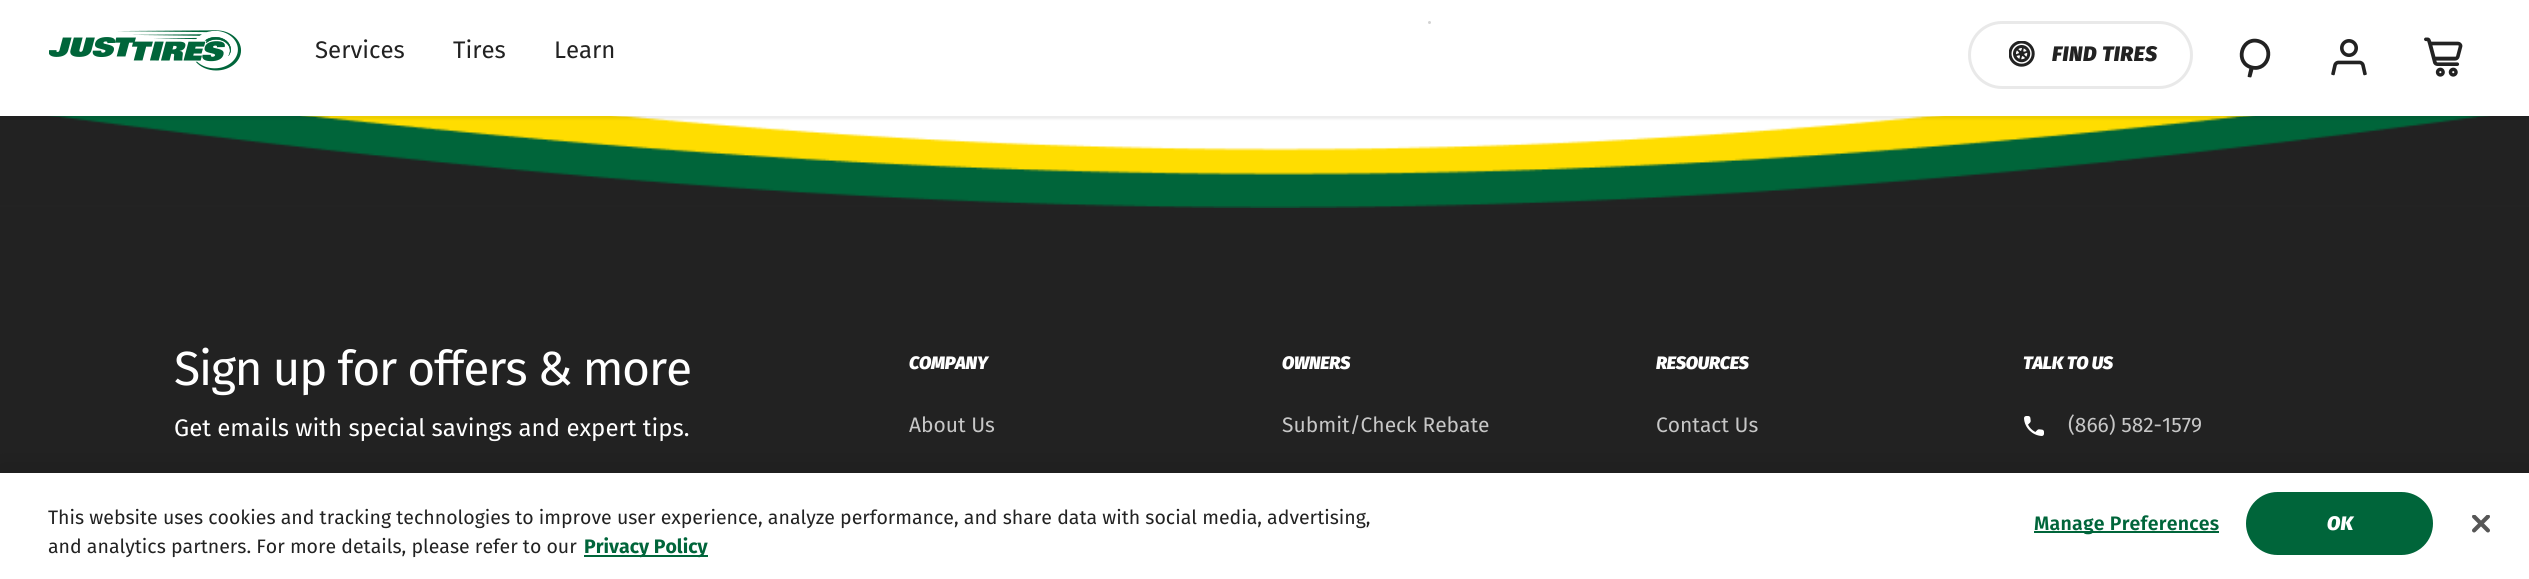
import math
import cairo

surface = cairo.ImageSurface(cairo.Format.RGB24, 2529, 579)
ctx = cairo.Context(surface)
options = cairo.FontOptions()
options.set_hint_metrics(cairo.HintMetrics.OFF)
options.set_hint_style(cairo.HintStyle.NONE)
ctx.set_font_options(options)
ctx.set_miter_limit(4)


def ink(r, g, b):
    ctx.set_source_rgb(r / 255, g / 255, b / 255)


def write(x, y, s, family, size, color, bold=False, italic=False):
    ctx.select_font_face(family, cairo.FontSlant.ITALIC if italic else cairo.FontSlant.NORMAL, cairo.FontWeight.BOLD if bold else cairo.FontWeight.NORMAL)
    ctx.set_font_size(size)
    ink(*color)
    ctx.move_to(x, y)
    ctx.show_text(s)


def write_spaced(x, y, s, letter, word):
    ctx.move_to(x, y)
    for ch in s:
        ctx.show_text(ch)
        ctx.rel_move_to(letter + word * (ch == ' '), 0)


def block(x, y, w, h, *color):
    ink(*color)
    ctx.rectangle(x, y, w, h)
    ctx.fill()


def round_path(x, y, w, h, r):
    ctx.new_sub_path()
    for i, (u, v) in enumerate([(x + w - r, y + h - r), (x + r, y + h - r), (x + r, y + r), (x + w - r, y + r)]):
        ctx.arc(u, v, r, i * math.pi / 2, (i + 1) * math.pi / 2)
    ctx.close_path()


def blur_box(x, y, w, h, r, blur, alpha):
    ctx.push_group_with_content(cairo.Content.ALPHA)
    ctx.set_operator(cairo.Operator.SOURCE)
    for i in range(15, -16, -2):
        e = blur * i / 6
        if min(w, h) + 2 * e > 0:
            ctx.set_source_rgba(0, 0, 0, alpha * math.erfc((i - 1) / 8.5) / 2)
            round_path(x - e, y - e, w + 2 * e, h + 2 * e, max(0, min(r + e + blur * .6, min(w, h) / 2 + e)))
            ctx.fill()
    ctx.mask(ctx.pop_group())


def paste(path, x, y, w, h):
    ctx.save()
    ctx.set_source_surface(cairo.ImageSurface.create_from_png(path), x, y)
    ctx.rectangle(x, y, w, h)
    ctx.fill()
    ctx.restore()


s1 = dict(family="Fira Sans", size=24, color=(34, 34, 34))
s2 = dict(family="Fira Sans", size=24, color=(255, 255, 255))
s3 = dict(family="Fira Sans", size=21, color=(199, 199, 199))
s4 = dict(family="Fira Sans", size=19.5, color=(34, 34, 34))
s5 = dict(family="Fira Sans", size=19.5, color=(0, 101, 58), bold=True)

ink(255, 255, 255)
ctx.paint()
block(0, 207, 2529, 266, 34, 34, 34)
paste("pic5.png", 0, 116, 2529, 92)
ink(0, 0, 0)
blur_box(0, 3, 2529, 116, 0, 1.5, 0.08)
block(0, 1, 2529, 115, 255, 255, 255)
paste("pic1.png", 49, 30, 193, 41)
write(315, 58, "Services", **s1)
write(453, 58, "Tires", **s1)
write(554, 58, "Learn", **s1)
ink(211, 211, 211)
ctx.new_path()
ctx.arc(1429.5, 22.5, 1.5, 0, 2 * math.pi)
ctx.fill()
paste("pic2.png", 2424, 37, 39, 40)
round_path(1969.5, 22.5, 222, 65, 32.5)
ink(233, 233, 233)
ctx.set_line_width(3)
ctx.stroke()
paste("pic3.png", 2009, 41, 26, 26)
ctx.select_font_face("Fira Sans Black", cairo.FontSlant.ITALIC)
ctx.set_font_size(21)
ink(34, 34, 34)
write_spaced(2052, 61, "FIND TIRES", 0.5, 0)
ctx.new_path()
ctx.move_to(2258, 41)
ctx.curve_to(2275.5, 45.5, 2269, 71.5, 2252, 67.5)
ctx.curve_to(2234.5, 63.5, 2241, 37, 2258, 41)
ctx.close_path()
ctx.set_line_width(3.8)
ctx.stroke()
ctx.new_path()
ctx.move_to(2250.5, 67.5)
ctx.curve_to(2254.5, 68.5, 2253.5, 68.5, 2252.5, 73)
ctx.curve_to(2251, 77.5, 2252.5, 78, 2248, 77)
ctx.curve_to(2247, 77, 2248.5, 73, 2248.5, 72)
ctx.curve_to(2249, 71.5, 2249, 67, 2250.5, 67.5)
ctx.close_path()
ctx.fill()
paste("pic4.png", 2331, 39, 36, 37)
ctx.select_font_face("Fira Sans")
ctx.set_font_size(48)
ink(255, 255, 255)
write_spaced(174, 385, "Sign up for offers & more", -1.4, 0)
write(174, 436, "Get emails with special savings and expert tips.", **s2)
ctx.select_font_face("Fira Sans Black", cairo.FontSlant.ITALIC)
ctx.set_font_size(18)
write_spaced(909, 369, "COMPANY", -0.25, 0)
write(909, 432, "About Us", **s3)
ctx.select_font_face("Fira Sans Black", cairo.FontSlant.ITALIC)
ctx.set_font_size(18)
ink(255, 255, 255)
write_spaced(1282, 369, "OWNERS", -0.25, 0)
write(1282, 432, "Submit/Check Rebate", **s3)
ctx.select_font_face("Fira Sans Black", cairo.FontSlant.ITALIC)
ctx.set_font_size(18)
ink(255, 255, 255)
write_spaced(1656, 369, "RESOURCES", -0.25, 0)
write(1656, 432, "Contact Us", **s3)
ctx.select_font_face("Fira Sans Black", cairo.FontSlant.ITALIC)
ctx.set_font_size(18)
ink(255, 255, 255)
write_spaced(2023, 369, "TALK TO US", -0.25, 0)
paste("pic6.png", 2024, 416, 20, 20)
write(2068, 432, "(866) 582-1579", **s3)
ink(0, 0, 0)
blur_box(0, 473, 2529, 106, 0, 13.5, 0.2)
block(0, 473, 2529, 106, 255, 255, 255)
write(48, 524, "This website uses cookies and tracking technologies to improve user experience, analyze performance, and share data with social media, advertising,", **s4)
write(48, 553, "and analytics partners. For more details, please refer to our", **s4)
block(584, 555, 124, 2, 0, 101, 58)
write(584, 553, "Privacy Policy", **s5)
block(2034, 531, 185, 2, 0, 101, 58)
ctx.select_font_face("Fira Sans SemiBold")
write_spaced(2034, 530, "Manage Preferences", 0.25, 0)
round_path(2247, 493, 185, 61, 30.5)
ctx.fill_preserve()
ctx.set_line_width(2)
ctx.stroke()
ctx.select_font_face("Fira Sans Black", cairo.FontSlant.ITALIC)
ink(255, 255, 255)
write_spaced(2327, 530, "OK", 0.25, 0)
paste("pic7.png", 2472, 515, 18, 18)
surface.write_to_png("screenshot.png")
